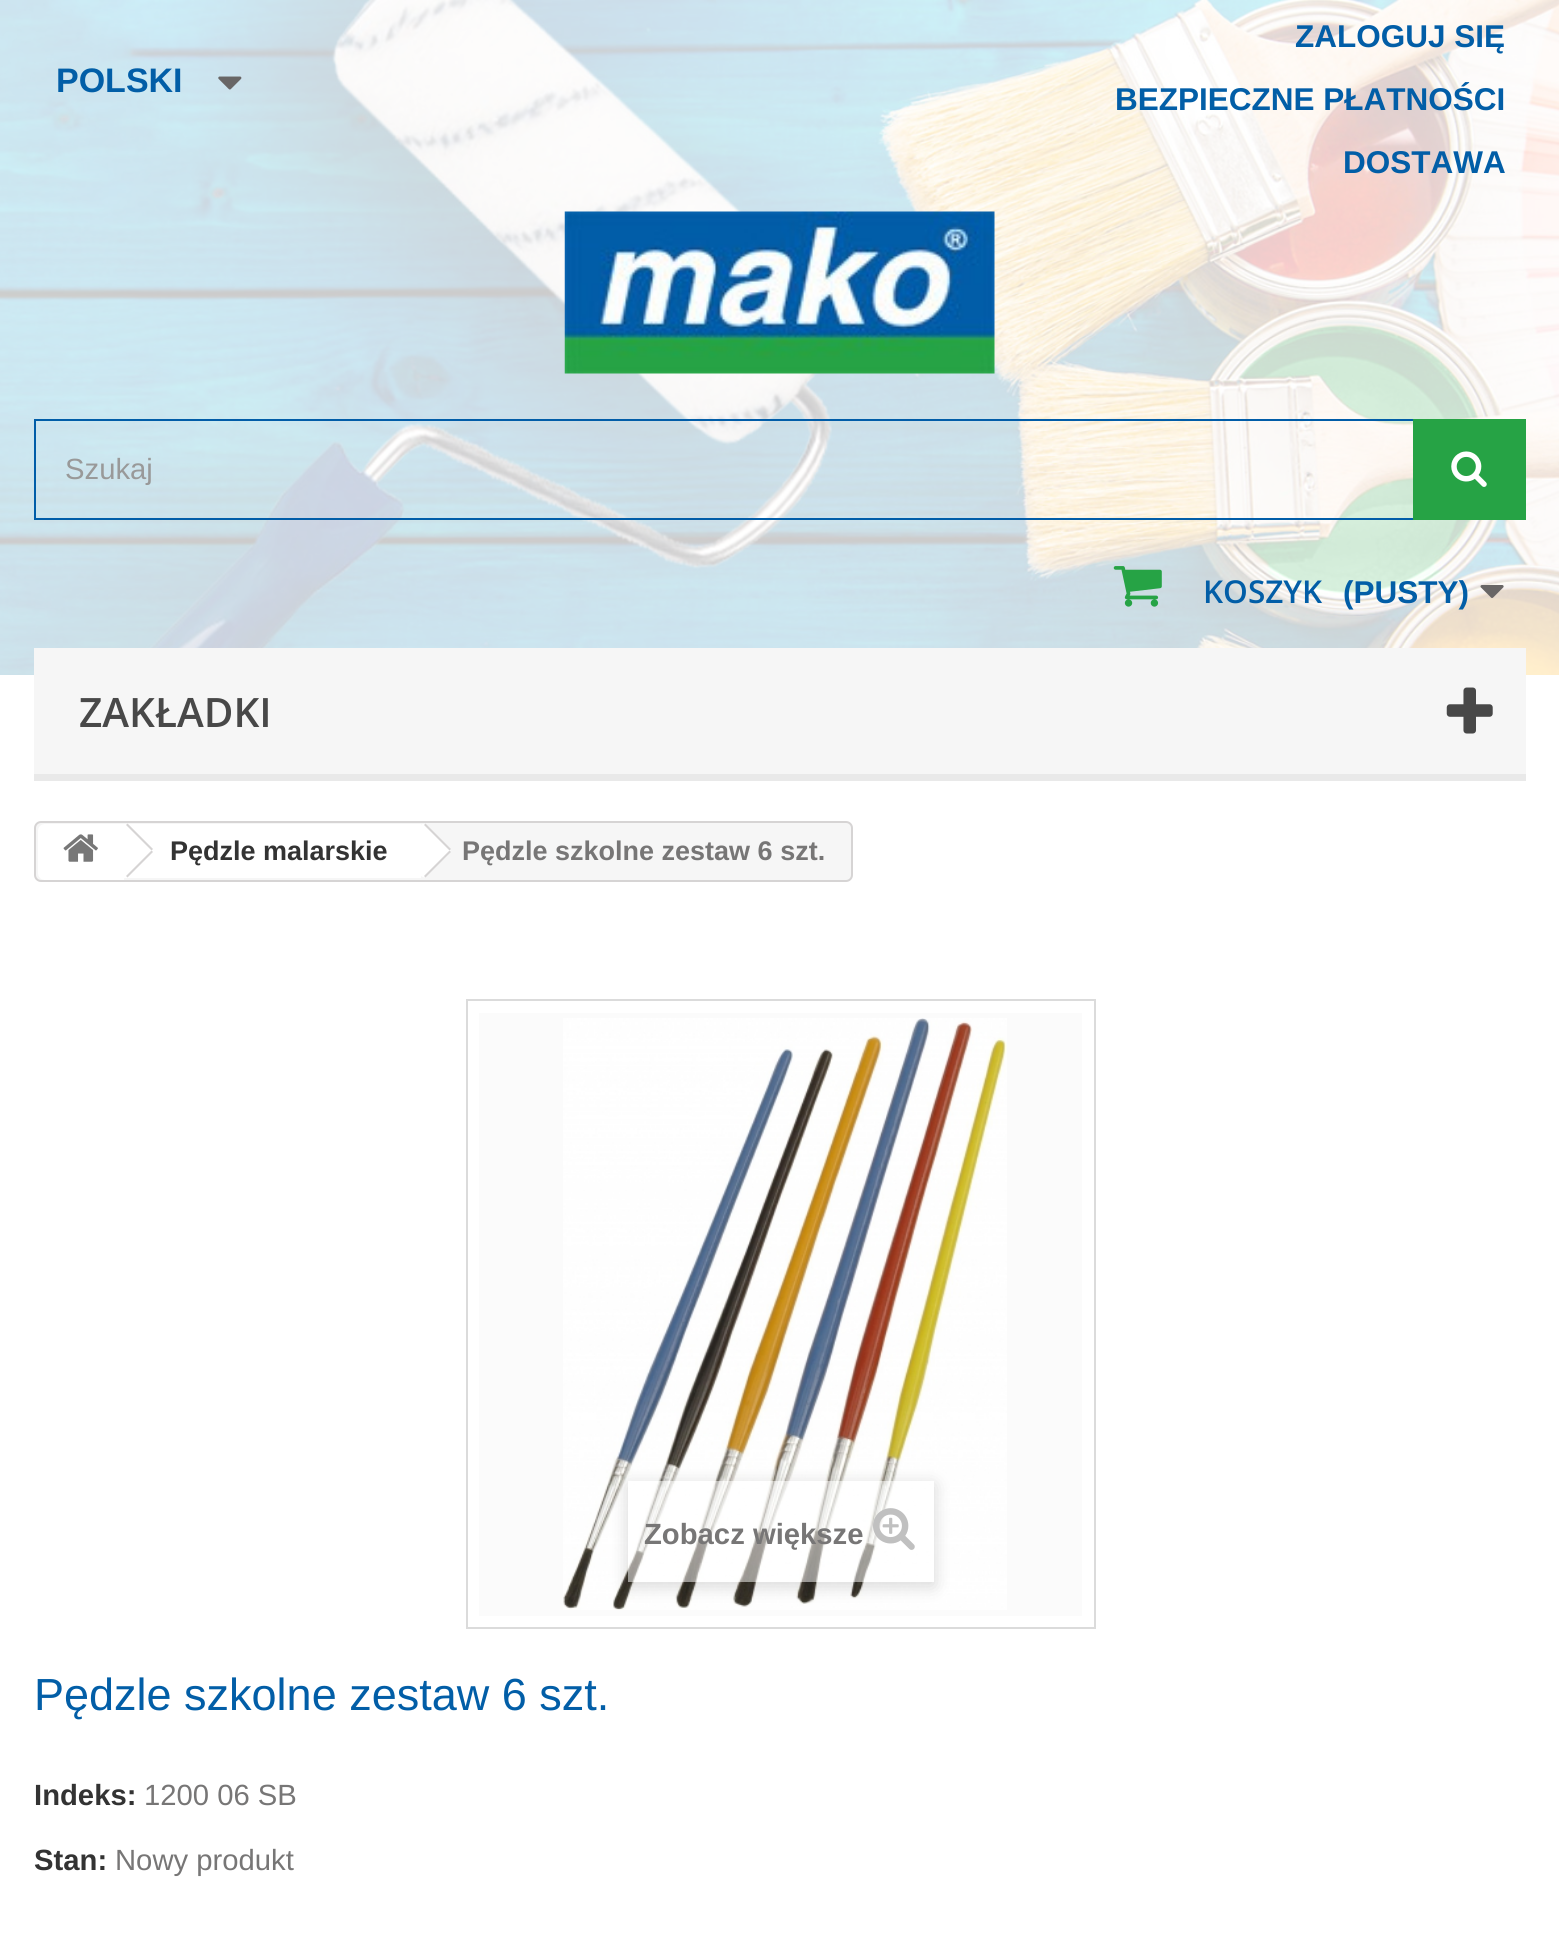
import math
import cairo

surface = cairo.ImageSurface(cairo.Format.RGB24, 1559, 1933)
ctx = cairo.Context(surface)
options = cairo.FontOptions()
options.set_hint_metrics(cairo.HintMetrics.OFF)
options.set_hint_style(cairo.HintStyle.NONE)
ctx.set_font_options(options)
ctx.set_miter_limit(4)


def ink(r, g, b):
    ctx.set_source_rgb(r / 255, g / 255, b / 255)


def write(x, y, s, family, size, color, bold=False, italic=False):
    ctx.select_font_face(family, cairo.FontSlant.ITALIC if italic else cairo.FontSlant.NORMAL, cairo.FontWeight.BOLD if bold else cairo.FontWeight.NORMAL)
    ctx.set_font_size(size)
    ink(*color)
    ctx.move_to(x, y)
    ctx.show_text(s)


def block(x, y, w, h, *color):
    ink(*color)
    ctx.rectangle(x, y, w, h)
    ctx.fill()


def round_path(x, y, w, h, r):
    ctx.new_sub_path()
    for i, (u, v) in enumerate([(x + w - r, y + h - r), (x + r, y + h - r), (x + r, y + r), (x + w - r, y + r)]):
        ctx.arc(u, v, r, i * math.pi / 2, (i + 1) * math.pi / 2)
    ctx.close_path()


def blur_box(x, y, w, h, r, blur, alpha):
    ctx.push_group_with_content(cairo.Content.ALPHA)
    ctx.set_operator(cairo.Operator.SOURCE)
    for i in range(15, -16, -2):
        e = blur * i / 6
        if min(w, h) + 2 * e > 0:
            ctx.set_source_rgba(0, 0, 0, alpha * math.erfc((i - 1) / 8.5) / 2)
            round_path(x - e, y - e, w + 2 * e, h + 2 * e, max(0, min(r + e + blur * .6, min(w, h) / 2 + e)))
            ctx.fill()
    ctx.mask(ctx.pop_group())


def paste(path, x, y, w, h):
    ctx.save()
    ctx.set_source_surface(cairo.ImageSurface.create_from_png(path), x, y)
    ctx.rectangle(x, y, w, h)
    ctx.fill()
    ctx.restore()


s1 = dict(family="Liberation Sans", size=31.5, color=(2, 94, 167), bold=True)
s2 = dict(family="Liberation Sans", size=34, color=(2, 94, 167), bold=True)
s3 = dict(family="Liberation Sans", size=29.25, color=(153, 153, 153))
s4 = dict(family="Open Sans SemiBold", size=31.5, color=(2, 94, 167))
s5 = dict(family="Open Sans SemiBold", size=40.5, color=(72, 72, 72))
s6 = dict(family="Liberation Sans", size=27, color=(51, 51, 51), bold=True)
s7 = dict(family="Liberation Sans", size=27, color=(119, 118, 118), bold=True)
s8 = dict(family="Liberation Sans", size=29.25, color=(119, 118, 118), bold=True)
s9 = dict(family="Liberation Sans", size=45, color=(2, 94, 167))
s10 = dict(family="Liberation Sans", size=29.25, color=(51, 51, 51), bold=True)
s11 = dict(family="Liberation Sans", size=29.25, color=(119, 118, 118))

ink(255, 255, 255)
ctx.paint()
paste("pic1.png", 0, 0, 1559, 675)
write(1295, 47, "ZALOGUJ SIĘ", **s1)
write(1115, 110, "BEZPIECZNE PŁATNOŚCI", **s1)
write(1343, 173, "DOSTAWA", **s1)
write(56, 92, "POLSKI", **s2)
paste("pic2.png", 218, 76, 24, 14)
paste("pic3.png", 564, 211, 431, 163)
ctx.rectangle(35, 420, 1490, 99)
ink(1, 93, 168)
ctx.stroke()
write(65, 479, "Szukaj", **s3)
block(1413, 419, 113, 101, 38, 163, 69)
paste("pic4.png", 1451, 451, 36, 36)
paste("pic5.png", 1113, 566, 49, 41)
write(1203, 603, "KOSZYK", **s4)
write(1343, 603, "(PUSTY)", **s1)
paste("pic6.png", 1480, 585, 24, 13)
block(34, 648, 1492, 126, 246, 246, 246)
block(34, 774, 1492, 7, 233, 233, 233)
write(79, 727, "ZAKŁADKI", **s5)
paste("pic7.png", 1446, 687, 47, 47)
ink(246, 246, 246)
round_path(35, 822, 817, 59, 6)
ctx.fill_preserve()
ink(214, 212, 212)
ctx.stroke()
ink(255, 255, 255)
ctx.new_path()
ctx.move_to(45, 824)
ctx.line_to(124, 824)
ctx.line_to(124, 880)
ctx.line_to(45, 880)
ctx.curve_to(41, 880, 38, 877, 38, 873)
ctx.line_to(38, 831)
ctx.curve_to(38, 827, 41, 824, 45, 824)
ctx.close_path()
ctx.fill()
paste("pic8.png", 63, 834, 35, 28)
block(124, 824, 297, 54, 255, 255, 255)
ink(214, 212, 212)
ctx.new_path()
ctx.move_to(127.5, 823.5)
ctx.line_to(153, 849)
ctx.line_to(151.5, 850.5)
ctx.line_to(126, 825)
ctx.close_path()
ctx.fill()
ctx.new_path()
ctx.move_to(151.5, 850.5)
ctx.line_to(153, 852)
ctx.line_to(127.5, 877.5)
ctx.line_to(126, 876)
ctx.close_path()
ctx.fill()
write(170, 860, "Pędzle malarskie", **s6)
ink(255, 255, 255)
ctx.new_path()
ctx.move_to(427, 825)
ctx.line_to(426, 824)
ctx.line_to(422, 824)
ctx.line_to(398, 847)
ctx.curve_to(397, 848, 397, 853, 398, 854)
ctx.line_to(417, 872)
ctx.curve_to(424, 879, 424, 879, 431, 872)
ctx.line_to(442, 861)
ctx.curve_to(445, 858, 454, 852, 449, 847)
ctx.close_path()
ctx.fill()
ink(214, 212, 212)
ctx.new_path()
ctx.move_to(425.5, 823.5)
ctx.line_to(451, 849)
ctx.line_to(449.5, 850.5)
ctx.line_to(424, 825)
ctx.close_path()
ctx.fill()
ctx.new_path()
ctx.move_to(449.5, 850.5)
ctx.line_to(451, 852)
ctx.line_to(425.5, 877.5)
ctx.line_to(424, 876)
ctx.close_path()
ctx.fill()
write(462, 860, "Pędzle szkolne zestaw 6 szt.", **s7)
ctx.rectangle(467, 1000, 628, 628)
ink(219, 219, 219)
ctx.stroke()
block(479, 1013, 603, 603, 251, 251, 251)
paste("pic9.png", 563, 1018, 444, 592)
ctx.save()
ctx.set_fill_rule(cairo.FillRule.EVEN_ODD)
ctx.new_path()
ctx.move_to(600, 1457)
ctx.line_to(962, 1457)
ctx.line_to(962, 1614)
ctx.line_to(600, 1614)
ctx.close_path()
ctx.move_to(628, 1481)
ctx.line_to(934, 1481)
ctx.line_to(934, 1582)
ctx.line_to(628, 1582)
ctx.close_path()
ctx.clip()
ink(0, 0, 0)
blur_box(628, 1485, 306, 101, 0, 9, 0.16)
ctx.restore()
ctx.set_source_rgba(1, 1, 1, 0.5)
ctx.rectangle(628, 1481, 306, 101)
ctx.fill()
write(644, 1544, "Zobacz większe", **s8)
paste("pic10.png", 873, 1508, 42, 42)
write(34, 1710, "Pędzle szkolne zestaw 6 szt.", **s9)
write(34, 1805, "Indeks:", **s10)
write(144, 1805, "1200 06 SB", **s11)
write(34, 1870, "Stan:", **s10)
write(115, 1870, "Nowy produkt", **s11)
surface.write_to_png("screenshot.png")
